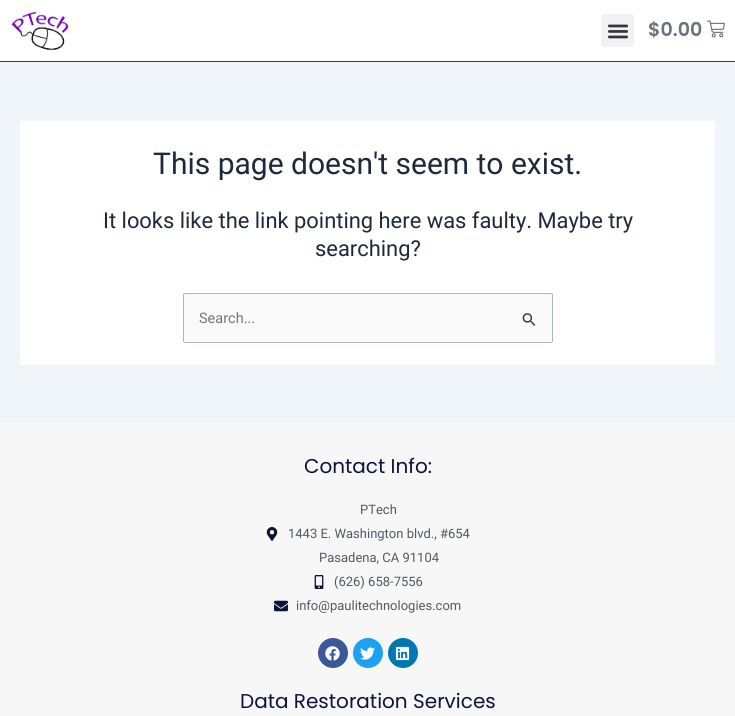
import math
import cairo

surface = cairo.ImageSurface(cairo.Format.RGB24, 735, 716)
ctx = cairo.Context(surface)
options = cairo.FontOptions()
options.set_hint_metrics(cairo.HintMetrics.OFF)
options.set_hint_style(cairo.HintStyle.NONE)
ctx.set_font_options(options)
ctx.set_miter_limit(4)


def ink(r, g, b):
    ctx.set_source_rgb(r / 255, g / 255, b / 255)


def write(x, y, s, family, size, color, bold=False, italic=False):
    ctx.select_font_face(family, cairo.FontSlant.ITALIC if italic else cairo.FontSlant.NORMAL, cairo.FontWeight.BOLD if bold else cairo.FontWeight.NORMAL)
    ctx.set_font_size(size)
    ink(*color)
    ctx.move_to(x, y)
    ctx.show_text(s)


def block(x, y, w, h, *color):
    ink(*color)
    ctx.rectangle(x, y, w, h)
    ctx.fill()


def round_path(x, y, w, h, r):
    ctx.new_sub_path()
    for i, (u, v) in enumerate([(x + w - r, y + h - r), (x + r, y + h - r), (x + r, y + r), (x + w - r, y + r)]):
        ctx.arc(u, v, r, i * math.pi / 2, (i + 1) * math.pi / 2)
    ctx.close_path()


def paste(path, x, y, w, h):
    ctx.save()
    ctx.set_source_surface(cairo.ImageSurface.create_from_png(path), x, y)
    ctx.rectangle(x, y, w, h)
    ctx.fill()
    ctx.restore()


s1 = dict(family="Poppins SemiBold", size=19, color=(105, 114, 125))
s2 = dict(family="Roboto", size=30, color=(30, 41, 59))
s3 = dict(family="Roboto", size=21.9, color=(30, 41, 59))
s4 = dict(family="Roboto", size=14.5, color=(117, 117, 117))
s5 = dict(family="Poppins", size=20, color=(12, 20, 54))
s6 = dict(family="Roboto", size=13, color=(84, 89, 95))

ink(240, 245, 250)
ctx.paint()
block(0, 0, 735, 61, 255, 255, 255)
block(0, 61, 735, 1, 51, 65, 85)
paste("pic1.png", 11, 11, 58, 40)
ink(242, 242, 242)
round_path(601, 14, 33, 33, 3)
ctx.fill()
paste("pic2.png", 607, 24, 22, 15)
write(648, 36, "$0.00", **s1)
paste("pic3.png", 707, 20, 18, 18)
block(20, 121, 695, 244, 255, 255, 255)
write(153, 174, "This page doesn't seem to exist.", **s2)
write(103, 228, "It looks like the link pointing here was faulty. Maybe try", **s3)
write(315, 256, "searching?", **s3)
ink(250, 250, 250)
round_path(183.5, 293.5, 369, 49, 1.5)
ctx.fill_preserve()
ink(173, 182, 190)
ctx.set_line_width(1)
ctx.stroke()
write(199, 323, "Search...", **s4)
paste("pic4.png", 522, 313, 14, 13)
block(0, 423, 735, 293, 247, 247, 247)
write(304, 473, "Contact Info:", **s5)
paste("pic5.png", 266, 527, 12, 14)
write(360, 514, "PTech", **s6)
write(288, 538, "1443 E. Washington blvd., #654", **s6)
write(319, 562, "Pasadena, CA 91104", **s6)
paste("pic6.png", 314, 575, 10, 14)
write(334, 586, "(626) 658-7556", **s6)
paste("pic7.png", 274, 600, 14, 12)
write(296, 610, "info@paulitechnologies.com", **s6)
ink(59, 89, 152)
ctx.new_path()
ctx.arc(333, 653, 15, 0, 2 * math.pi)
ctx.fill()
paste("pic8.png", 325, 646, 15, 15)
ink(29, 161, 242)
ctx.arc(368, 653, 15, 0, 2 * math.pi)
ctx.fill()
paste("pic9.png", 360, 647, 15, 13)
ink(0, 119, 181)
ctx.arc(403, 653, 15, 0, 2 * math.pi)
ctx.fill()
paste("pic10.png", 395, 646, 15, 15)
write(240, 708, "Data Restoration Services", **s5)
surface.write_to_png("screenshot.png")
